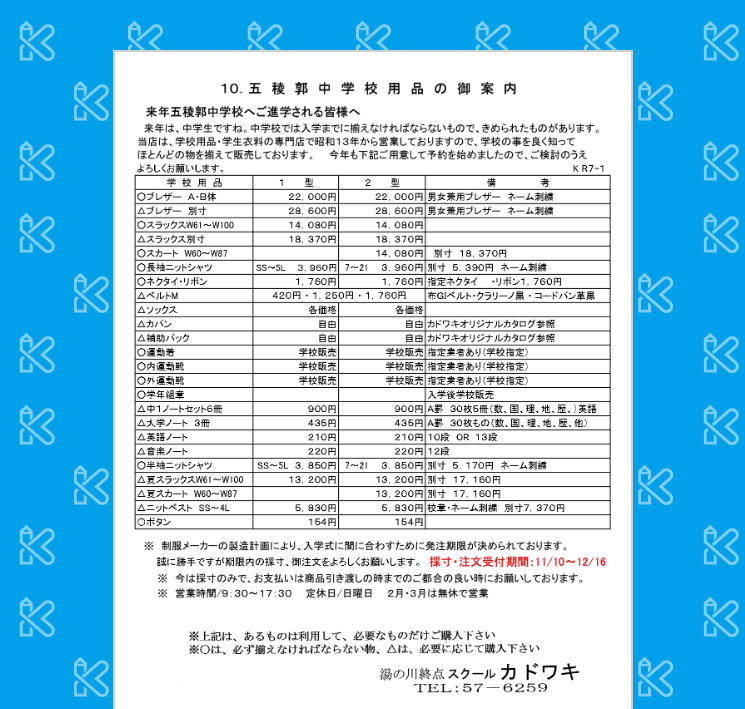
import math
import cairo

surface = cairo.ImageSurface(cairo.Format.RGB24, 745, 709)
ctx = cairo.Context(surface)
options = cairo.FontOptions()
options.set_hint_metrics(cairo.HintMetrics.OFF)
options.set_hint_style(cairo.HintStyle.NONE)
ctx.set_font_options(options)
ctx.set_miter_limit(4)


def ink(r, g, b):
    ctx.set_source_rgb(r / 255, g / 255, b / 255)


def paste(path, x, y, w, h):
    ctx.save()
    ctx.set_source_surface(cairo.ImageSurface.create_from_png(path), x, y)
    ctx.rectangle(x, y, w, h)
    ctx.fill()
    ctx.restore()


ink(255, 255, 255)
ctx.paint()
paste("pic1.png", 0, 0, 745, 709)
ctx.rectangle(114, 51, 518, 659)
ink(207, 207, 207)
ctx.stroke()
paste("pic2.png", 115, 52, 516, 657)
surface.write_to_png("screenshot.png")
